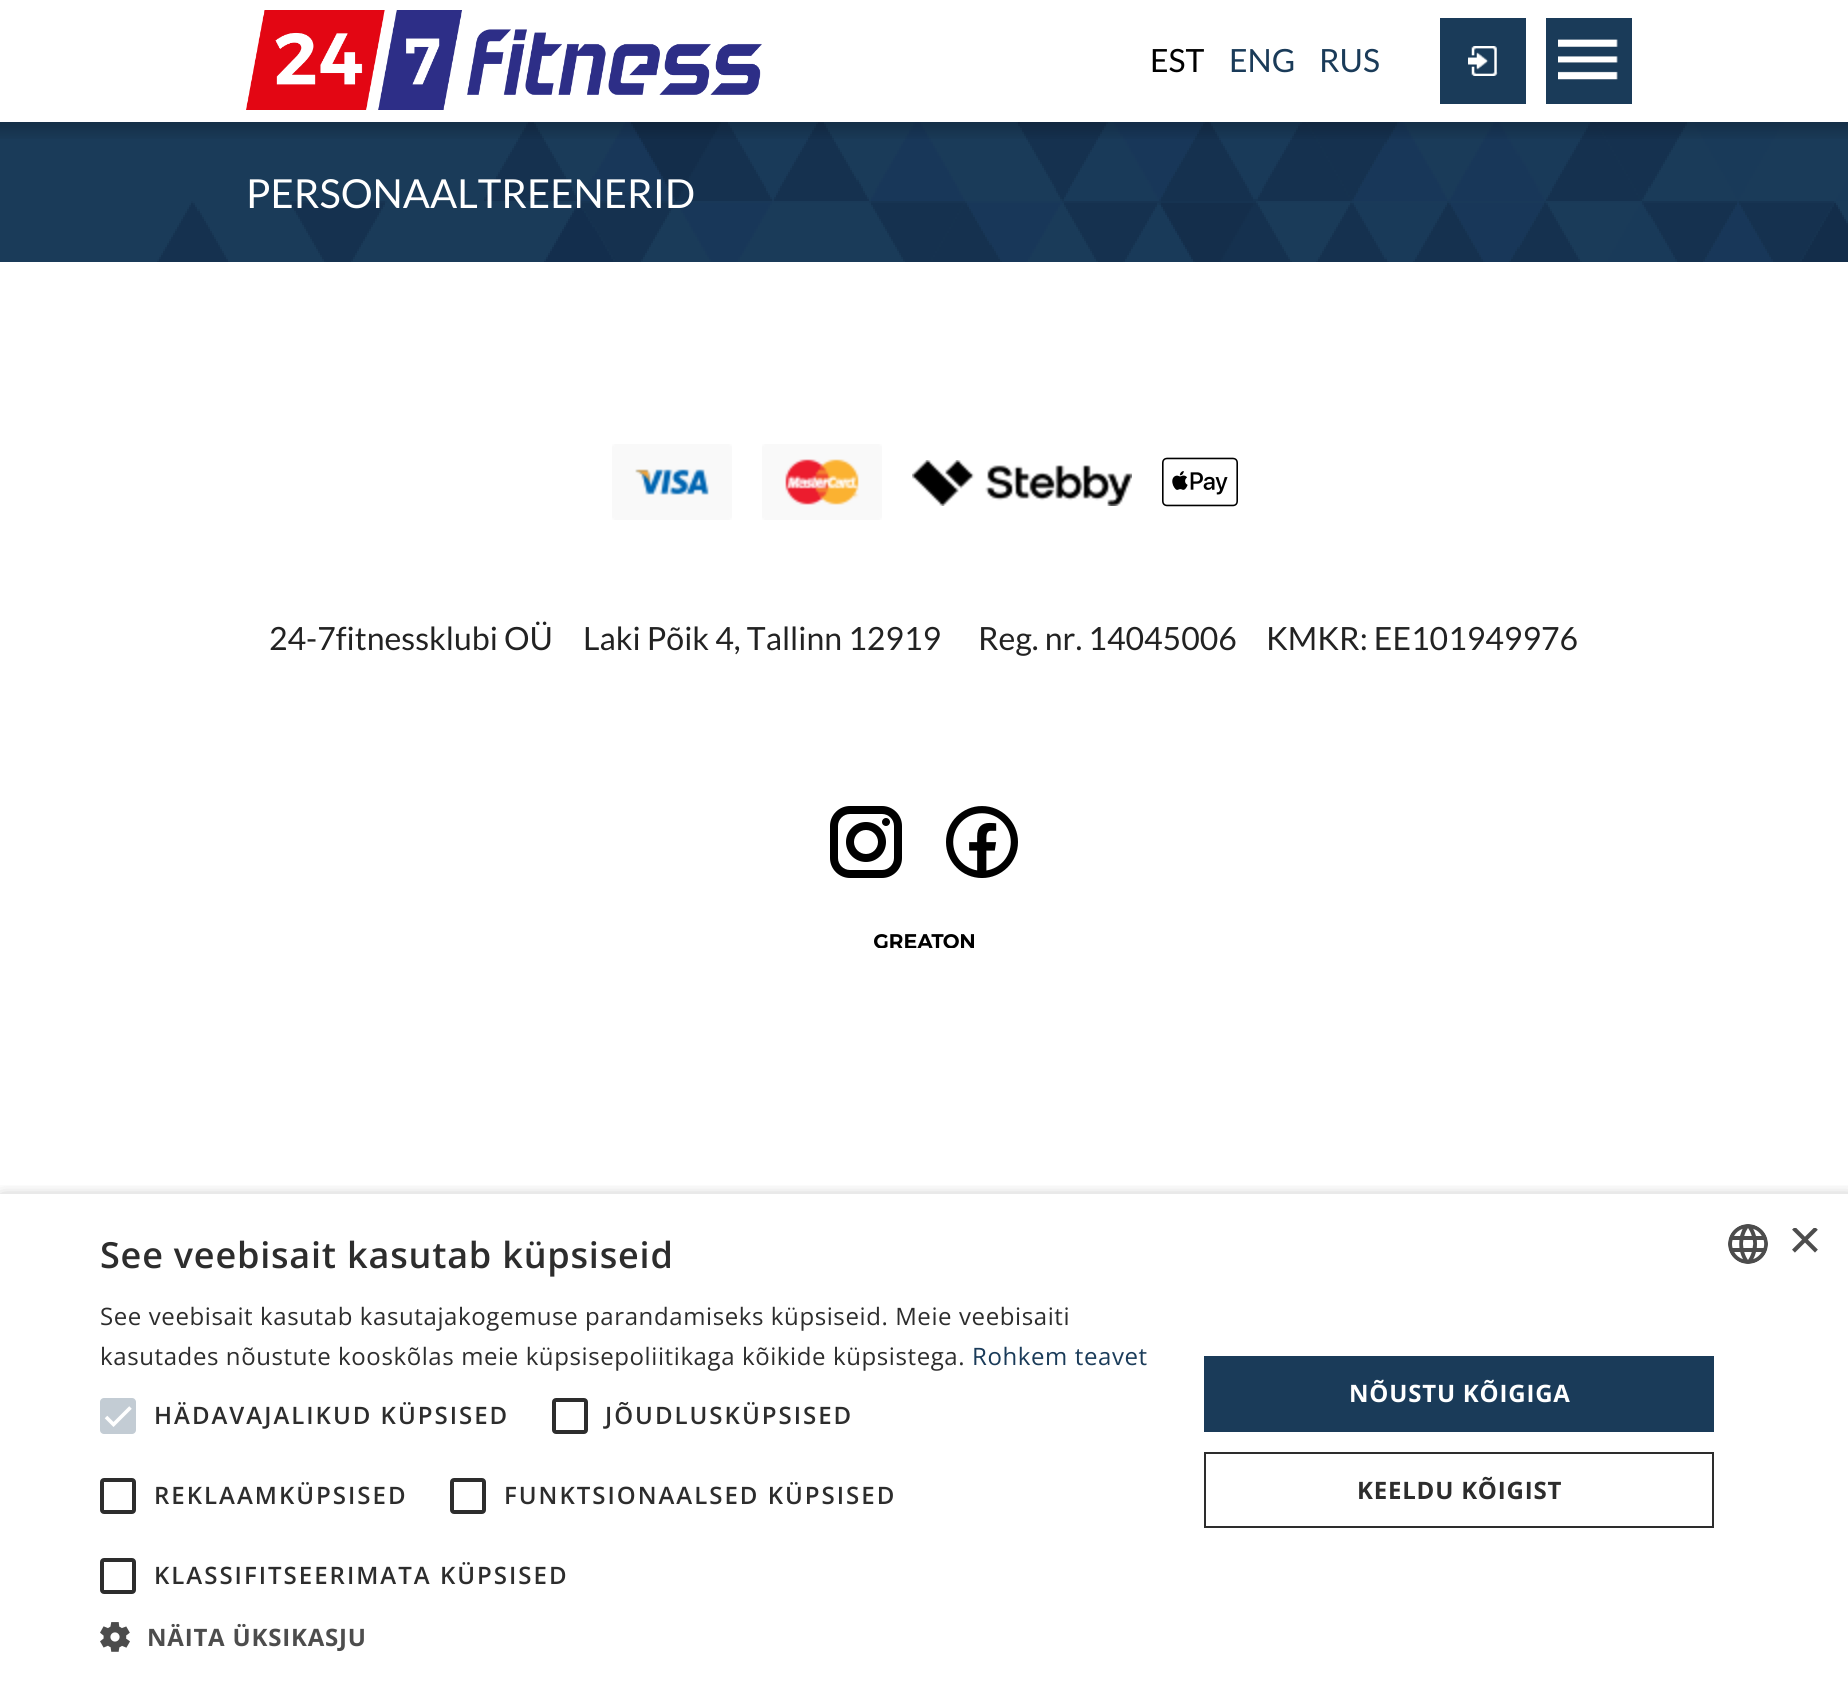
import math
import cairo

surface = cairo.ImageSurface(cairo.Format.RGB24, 1848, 1689)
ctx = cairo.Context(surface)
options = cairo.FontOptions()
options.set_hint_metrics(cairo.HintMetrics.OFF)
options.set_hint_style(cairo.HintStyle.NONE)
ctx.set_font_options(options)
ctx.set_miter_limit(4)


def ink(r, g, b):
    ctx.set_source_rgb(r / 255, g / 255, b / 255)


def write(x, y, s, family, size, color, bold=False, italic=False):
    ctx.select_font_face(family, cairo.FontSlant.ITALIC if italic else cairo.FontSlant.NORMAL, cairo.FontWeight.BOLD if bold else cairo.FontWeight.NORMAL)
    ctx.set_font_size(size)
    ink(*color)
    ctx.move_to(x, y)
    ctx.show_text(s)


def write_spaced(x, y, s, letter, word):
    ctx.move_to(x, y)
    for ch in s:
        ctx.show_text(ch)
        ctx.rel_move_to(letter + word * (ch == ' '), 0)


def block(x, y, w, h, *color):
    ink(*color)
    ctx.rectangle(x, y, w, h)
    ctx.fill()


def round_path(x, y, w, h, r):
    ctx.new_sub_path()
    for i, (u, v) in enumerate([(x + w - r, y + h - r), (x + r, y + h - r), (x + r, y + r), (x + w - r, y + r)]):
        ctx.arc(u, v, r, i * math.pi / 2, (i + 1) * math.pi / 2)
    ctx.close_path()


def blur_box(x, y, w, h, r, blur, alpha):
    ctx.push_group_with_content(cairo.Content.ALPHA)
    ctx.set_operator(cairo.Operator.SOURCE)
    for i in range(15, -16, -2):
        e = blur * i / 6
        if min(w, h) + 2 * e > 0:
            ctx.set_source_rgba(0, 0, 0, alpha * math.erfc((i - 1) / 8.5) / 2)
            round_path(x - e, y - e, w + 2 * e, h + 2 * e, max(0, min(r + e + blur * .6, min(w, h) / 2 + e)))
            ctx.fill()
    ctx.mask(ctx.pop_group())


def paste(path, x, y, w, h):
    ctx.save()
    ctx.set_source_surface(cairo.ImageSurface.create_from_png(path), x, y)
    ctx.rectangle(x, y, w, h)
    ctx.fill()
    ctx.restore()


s1 = dict(family="Lato", size=32, color=(0, 0, 0))
s2 = dict(family="Lato", size=32, color=(26, 59, 89))
s3 = dict(family="Lato", size=40, color=(255, 255, 255))
s4 = dict(family="Lato", size=32, color=(34, 34, 34))
s5 = dict(family="Liberation Sans", size=58, color=(77, 77, 77))

ink(255, 255, 255)
ctx.paint()
paste("pic1.png", 246, 10, 516, 100)
block(1546, 18, 86, 86, 26, 59, 89)
paste("pic2.png", 1558, 39, 60, 41)
write(1150, 72, "EST", **s1)
write(1229, 72, "ENG", **s2)
write(1319, 72, "RUS", **s2)
block(1440, 18, 86, 86, 26, 59, 89)
paste("pic3.png", 1468, 46, 30, 30)
block(0, 122, 157, 140, 26, 59, 89)
paste("pic4.png", 157, 122, 1691, 140)
gradient = cairo.LinearGradient(924, 122, 924, 142)
gradient.add_color_stop_rgba(0, 0, 0, 0, 0.2)
gradient.add_color_stop_rgba(1, 0, 0, 0, 0)
ctx.set_source(gradient)
ctx.rectangle(0, 122, 1848, 17)
ctx.fill()
write(246, 208, "PERSONAALTREENERID", **s3)
paste("pic5.png", 612, 444, 120, 76)
paste("pic6.png", 762, 444, 120, 76)
paste("pic7.png", 912, 460, 220, 46)
paste("pic8.png", 1162, 457, 76, 50)
write(269, 650, "24-7fitnessklubi OÜ", **s4)
write(583, 650, "Laki Põik 4, Tallinn 12919", **s4)
write(978, 650, "Reg. nr. 14045006", **s4)
write(1266, 650, "KMKR: EE101949976", **s4)
paste("pic9.png", 830, 806, 72, 72)
paste("pic10.png", 946, 806, 72, 72)
paste("pic11.png", 874, 934, 100, 14)
ctx.save()
ctx.rectangle(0, 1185, 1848, 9)
ctx.clip()
ink(0, 0, 0)
blur_box(2, 1198, 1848, 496, 0, 8, 0.35)
ctx.restore()
ctx.select_font_face("Open Sans SemiBold")
ctx.set_font_size(36)
ink(45, 45, 45)
write_spaced(100, 1268, "See veebisait kasutab küpsiseid", 0.8, 0)
ctx.select_font_face("Open Sans")
ctx.set_font_size(24)
write_spaced(100, 1325, "See veebisait kasutab kasutajakogemuse parandamiseks küpsiseid. Meie veebisaiti", 0.6, 0)
write_spaced(100, 1365, "kasutades nõustute kooskõlas meie küpsisepoliitikaga kõikide küpsistega.", 0.6, 0)
ink(26, 59, 89)
write_spaced(972, 1365, "Rohkem teavet", 0.6, 0)
ink(195, 204, 212)
round_path(100, 1398, 36, 36, 4)
ctx.fill()
ctx.new_path()
ctx.move_to(106, 1417)
ctx.line_to(113.5, 1424.5)
ctx.line_to(130.5, 1407.5)
ink(255, 255, 255)
ctx.set_line_width(3.6)
ctx.stroke()
ctx.select_font_face("Open Sans SemiBold")
ink(45, 45, 45)
write_spaced(154, 1424, "HÄDAVAJALIKUD KÜPSISED", 2, 0)
round_path(554, 1400, 32, 32, 2)
ctx.set_line_width(4)
ctx.stroke()
write_spaced(605, 1424, "JÕUDLUSKÜPSISED", 2, 0)
round_path(102, 1480, 32, 32, 2)
ctx.stroke()
write_spaced(154, 1504, "REKLAAMKÜPSISED", 2, 0)
round_path(452, 1480, 32, 32, 2)
ctx.stroke()
write_spaced(504, 1504, "FUNKTSIONAALSED KÜPSISED", 2, 0)
round_path(102, 1560, 32, 32, 2)
ctx.stroke()
write_spaced(154, 1584, "KLASSIFITSEERIMATA KÜPSISED", 2, 0)
paste("pic12.png", 100, 1622, 30, 30)
ctx.select_font_face("Open Sans", cairo.FontSlant.NORMAL, cairo.FontWeight.BOLD)
ink(77, 77, 77)
write_spaced(147, 1646, "NÄITA ÜKSIKASJU", 0.8, 0)
block(1204, 1356, 510, 76, 26, 59, 89)
ink(255, 255, 255)
write_spaced(1349, 1402, "NÕUSTU KÕIGIGA", 0.8, 0)
ctx.rectangle(1205, 1453, 508, 74)
ink(45, 45, 45)
ctx.set_line_width(2)
ctx.stroke()
write_spaced(1357, 1499, "KEELDU KÕIGIST", 0.8, 0)
paste("pic13.png", 1728, 1224, 40, 40)
ctx.save()
ctx.rectangle(1788, 1228, 30, 30)
ctx.clip()
write(1788, 1259, "×", **s5)
ctx.restore()
surface.write_to_png("screenshot.png")
